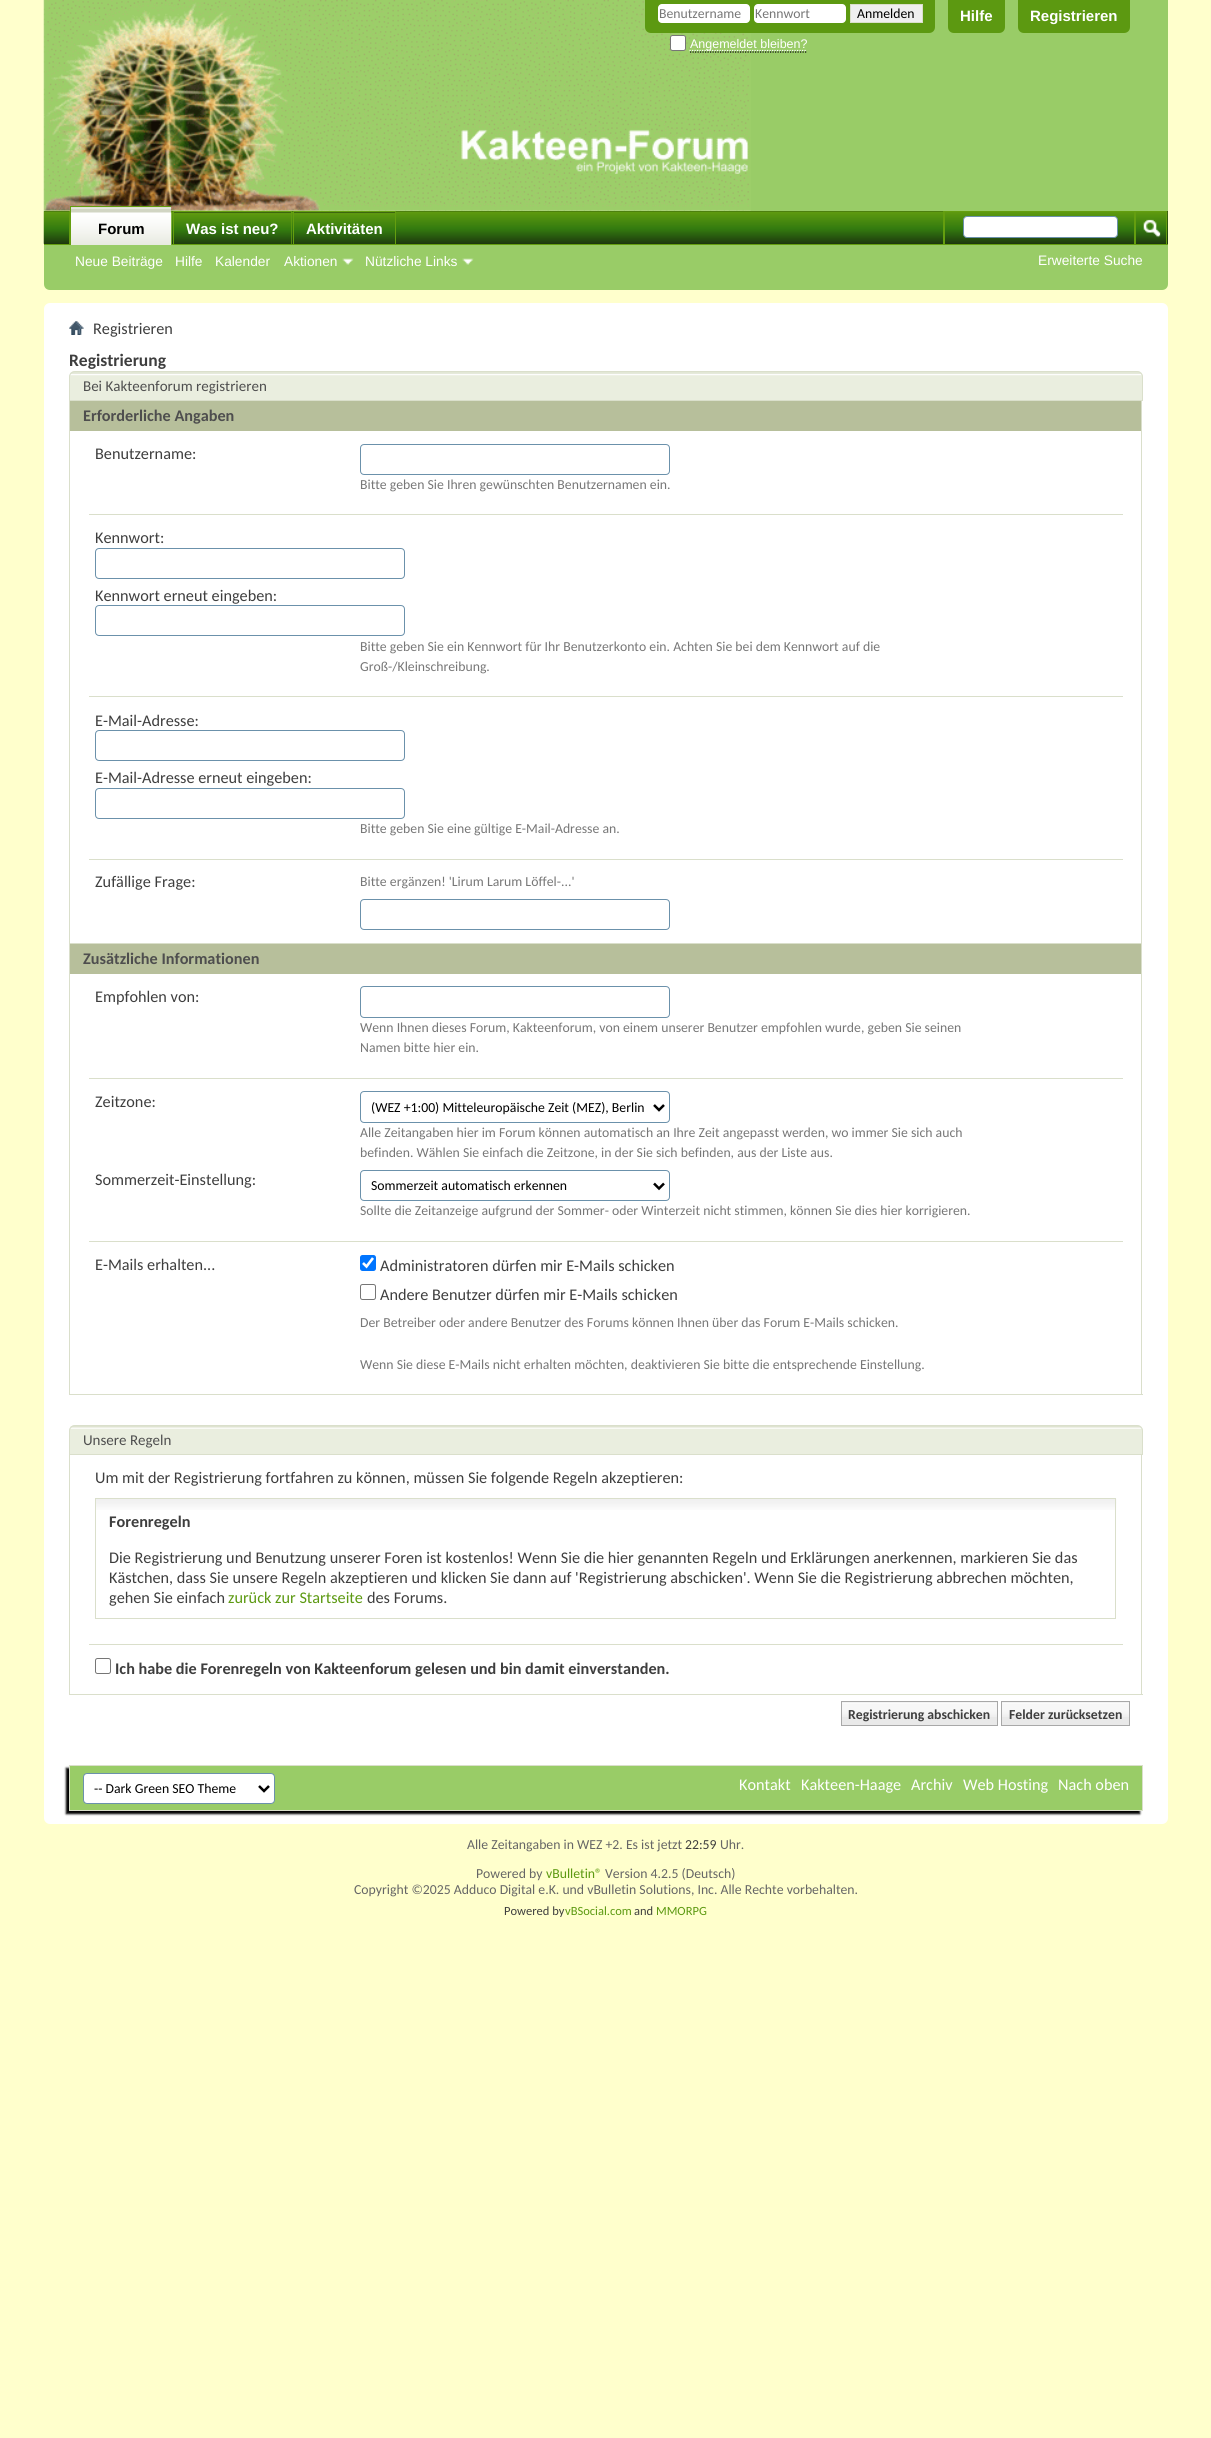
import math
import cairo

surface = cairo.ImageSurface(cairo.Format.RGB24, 1211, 2438)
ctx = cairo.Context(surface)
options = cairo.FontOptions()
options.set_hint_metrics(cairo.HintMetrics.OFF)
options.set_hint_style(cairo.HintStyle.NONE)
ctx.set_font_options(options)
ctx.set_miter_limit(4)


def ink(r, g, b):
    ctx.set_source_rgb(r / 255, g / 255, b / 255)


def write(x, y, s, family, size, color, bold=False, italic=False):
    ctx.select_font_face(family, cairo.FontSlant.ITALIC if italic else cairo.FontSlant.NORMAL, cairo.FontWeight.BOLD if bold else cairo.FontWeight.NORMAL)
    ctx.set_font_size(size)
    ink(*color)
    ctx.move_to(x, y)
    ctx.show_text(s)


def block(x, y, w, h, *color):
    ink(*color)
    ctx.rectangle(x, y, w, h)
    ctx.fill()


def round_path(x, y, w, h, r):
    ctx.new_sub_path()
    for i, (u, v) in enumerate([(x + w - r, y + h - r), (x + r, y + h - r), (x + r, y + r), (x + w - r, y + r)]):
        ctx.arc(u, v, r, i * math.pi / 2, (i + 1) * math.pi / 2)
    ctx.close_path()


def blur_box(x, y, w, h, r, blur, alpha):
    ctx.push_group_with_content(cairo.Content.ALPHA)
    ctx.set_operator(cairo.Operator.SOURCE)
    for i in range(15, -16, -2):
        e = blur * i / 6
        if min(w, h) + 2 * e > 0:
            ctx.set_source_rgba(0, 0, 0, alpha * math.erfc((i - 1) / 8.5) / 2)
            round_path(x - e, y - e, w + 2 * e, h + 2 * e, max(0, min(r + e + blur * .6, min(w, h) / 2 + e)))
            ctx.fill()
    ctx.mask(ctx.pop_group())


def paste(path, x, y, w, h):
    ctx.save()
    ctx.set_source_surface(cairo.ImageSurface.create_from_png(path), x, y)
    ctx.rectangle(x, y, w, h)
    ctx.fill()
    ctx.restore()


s1 = dict(family="Carlito", size=13.75, color=(119, 119, 119))
s2 = dict(family="Carlito", size=13.75, color=(0, 0, 0))
s3 = dict(family="Liberation Sans", size=12.5, color=(255, 255, 255))
s4 = dict(family="Liberation Sans", size=15, color=(255, 255, 255), bold=True)
s5 = dict(family="Liberation Sans", size=15, color=(0, 0, 0), bold=True)
s6 = dict(family="Liberation Sans", size=13.75, color=(255, 255, 255))
s7 = dict(family="Carlito", size=16.25, color=(62, 62, 62))
s8 = dict(family="Carlito", size=17.5, color=(62, 62, 62), bold=True)
s9 = dict(family="Carlito", size=15, color=(78, 78, 78))
s10 = dict(family="Carlito", size=16.25, color=(78, 78, 78), bold=True)
s11 = dict(family="Carlito", size=16.25, color=(62, 62, 62), bold=True)
s12 = dict(family="Carlito", size=16.25, color=(92, 153, 17))
s13 = dict(family="Carlito", size=13.75, color=(62, 62, 62), bold=True)
s14 = dict(family="Carlito", size=16.25, color=(255, 255, 255))
s15 = dict(family="Carlito", size=13.75, color=(102, 102, 102))
s16 = dict(family="Carlito", size=13.75, color=(62, 62, 62))
s17 = dict(family="Carlito", size=13.75, color=(92, 153, 17))
s18 = dict(family="Carlito", size=12.5, color=(62, 62, 62))
s19 = dict(family="Carlito", size=12.5, color=(92, 153, 17))

ink(255, 255, 204)
ctx.paint()
ink(153, 204, 103)
ctx.new_path()
ctx.move_to(44, 0)
ctx.line_to(1168, 0)
ctx.line_to(1168, 284)
ctx.curve_to(1168, 287.5, 1165.5, 290, 1162, 290)
ctx.line_to(50, 290)
ctx.curve_to(46.5, 290, 44, 287.5, 44, 284)
ctx.close_path()
ctx.fill()
paste("pic1.png", 43, 0, 708, 212)
ink(92, 153, 17)
ctx.new_path()
ctx.move_to(645, 0)
ctx.line_to(935, 0)
ctx.line_to(935, 27)
ctx.curve_to(935, 30.5, 932.5, 33, 929, 33)
ctx.line_to(651, 33)
ctx.curve_to(647.5, 33, 645, 30.5, 645, 27)
ctx.close_path()
ctx.fill()
ink(255, 255, 255)
round_path(658, 4, 92, 19, 4)
ctx.fill()
write(659, 18, "Benutzername", **s1)
ink(255, 255, 255)
round_path(754, 4, 92, 19, 4)
ctx.fill()
write(755, 18, "Kennwort", **s1)
ink(239, 239, 239)
ctx.rectangle(850.5, 4.5, 72, 18)
ctx.fill_preserve()
ink(218, 223, 203)
ctx.set_line_width(1)
ctx.stroke()
write(857, 18, "Anmelden", **s2)
ink(255, 255, 255)
round_path(670.5, 35.5, 15, 15, 2)
ctx.fill_preserve()
ink(118, 118, 118)
ctx.stroke()
ctx.new_path()
ctx.move_to(690, 52)
ctx.line_to(807.5, 52)
ink(0, 0, 0)
ctx.set_line_width(1.2)
ctx.set_dash([1.25, 1.25])
ctx.stroke()
ctx.new_path()
ctx.move_to(689.5, 50.5)
ctx.line_to(807, 50.5)
ink(255, 255, 255)
ctx.stroke()
write(690, 48, "Angemeldet bleiben?", **s3)
ink(92, 153, 17)
ctx.new_path()
ctx.move_to(948, 0)
ctx.line_to(1005, 0)
ctx.line_to(1005, 27)
ctx.curve_to(1005, 30.5, 1002.5, 33, 999, 33)
ctx.line_to(954, 33)
ctx.curve_to(950.5, 33, 948, 30.5, 948, 27)
ctx.close_path()
ctx.fill()
write(960, 21, "Hilfe", **s4)
ink(92, 153, 17)
ctx.new_path()
ctx.move_to(1018, 0)
ctx.line_to(1130, 0)
ctx.line_to(1130, 27)
ctx.curve_to(1130, 30.5, 1127.5, 33, 1124, 33)
ctx.line_to(1024, 33)
ctx.curve_to(1020.5, 33, 1018, 30.5, 1018, 27)
ctx.close_path()
ctx.fill()
write(1030, 21, "Registrieren", **s4)
ink(153, 204, 103)
ctx.new_path()
ctx.move_to(44, 211)
ctx.line_to(1168, 211)
ctx.line_to(1168, 272)
ctx.curve_to(1168, 275.5, 1165.5, 278, 1162, 278)
ctx.line_to(50, 278)
ctx.curve_to(46.5, 278, 44, 275.5, 44, 272)
ctx.close_path()
ctx.fill()
block(44, 211, 1124, 33, 26, 50, 14)
paste("pic2.png", 43, 211, 1125, 33)
block(171, 211, 1, 33, 100, 158, 15)
block(69, 211, 1, 33, 100, 158, 15)
block(291, 211, 1, 34, 100, 158, 15)
block(174, 212, 117, 1, 26, 50, 14)
paste("pic4.png", 172, 212, 120, 32)
block(173, 211, 118, 1, 100, 158, 15)
block(173, 211, 1, 34, 100, 158, 15)
block(395, 211, 1, 34, 100, 158, 15)
block(294, 212, 101, 1, 26, 50, 14)
paste("pic5.png", 292, 212, 103, 32)
block(293, 211, 102, 1, 100, 158, 15)
block(293, 211, 1, 34, 100, 158, 15)
block(44, 244, 1124, 1, 100, 158, 15)
block(71, 207, 100, 38, 209, 213, 195)
paste("pic3.png", 71, 207, 101, 38)
block(70, 206, 101, 1, 100, 158, 15)
block(70, 206, 1, 39, 100, 158, 15)
write(98, 234, "Forum", **s5)
write(186, 234, "Was ist neu?", **s4)
write(306, 234, "Aktivitäten", **s4)
write(75, 266, "Neue Beiträge", **s6)
write(175, 266, "Hilfe", **s6)
write(215, 266, "Kalender", **s6)
write(284, 266, "Aktionen", **s6)
paste("pic6.png", 342, 258, 12, 7)
write(365, 266, "Nützliche Links", **s6)
paste("pic7.png", 462, 258, 12, 7)
block(943, 211, 1, 33, 100, 158, 15)
block(944, 211, 190, 1, 100, 158, 15)
block(944, 211, 1, 33, 100, 158, 15)
ink(255, 255, 255)
round_path(963.5, 216.5, 154, 21, 3.5)
ctx.fill_preserve()
ink(107, 145, 171)
ctx.set_line_width(1)
ctx.set_dash([])
ctx.stroke()
block(1166, 211, 1, 33, 100, 158, 15)
block(1134, 211, 1, 33, 100, 158, 15)
block(1135, 211, 31, 1, 100, 158, 15)
block(1135, 211, 1, 33, 100, 158, 15)
paste("pic8.png", 1143, 219, 18, 19)
write(1038, 265, "Erweiterte Suche", **s6)
round_path(44, 303, 1124, 1521, 6)
ctx.fill()
paste("pic9.png", 69, 321, 15, 14)
write(93, 334, "Registrieren", **s7)
write(69, 366, "Registrierung", **s8)
ink(234, 238, 223)
ctx.new_path()
ctx.move_to(75, 371)
ctx.line_to(1137, 371)
ctx.curve_to(1140.5, 371, 1143, 373.5, 1143, 377)
ctx.line_to(1143, 401)
ctx.line_to(69, 401)
ctx.line_to(69, 377)
ctx.curve_to(69, 373.5, 71.5, 371, 75, 371)
ctx.close_path()
ctx.fill()
paste("pic10.png", 69, 372, 1073, 4)
ctx.new_path()
ctx.move_to(75, 371.5)
ctx.line_to(1137, 371.5)
ctx.curve_to(1140, 371.5, 1142.5, 374, 1142.5, 377)
ctx.line_to(1142.5, 400.5)
ctx.line_to(69.5, 400.5)
ctx.line_to(69.5, 377)
ctx.curve_to(69.5, 374, 72, 371.5, 75, 371.5)
ctx.close_path()
ink(218, 223, 203)
ctx.stroke()
write(83, 391, "Bei Kakteenforum registrieren", **s9)
block(1141, 401, 1, 994, 218, 223, 203)
block(69, 1394, 1074, 1, 218, 223, 203)
block(69, 401, 1, 994, 218, 223, 203)
block(70, 401, 1071, 30, 183, 191, 155)
write(83, 421, "Erforderliche Angaben", **s10)
write(95, 459, "Benutzername:", **s7)
round_path(360.5, 444.5, 309, 30, 3.5)
ink(107, 145, 171)
ctx.stroke()
write(360, 489, "Bitte geben Sie Ihren gewünschten Benutzernamen ein.", **s1)
block(89, 514, 1034, 1, 218, 223, 203)
write(95, 543, "Kennwort:", **s7)
round_path(95.5, 548.5, 309, 30, 3.5)
ink(107, 145, 171)
ctx.stroke()
write(95, 601, "Kennwort erneut eingeben:", **s7)
round_path(95.5, 605.5, 309, 30, 3.5)
ink(107, 145, 171)
ctx.stroke()
write(360, 651, "Bitte geben Sie ein Kennwort für Ihr Benutzerkonto ein. Achten Sie bei dem Kennwort auf die", **s1)
write(360, 671, "Groß-/Kleinschreibung.", **s1)
block(89, 696, 1034, 1, 218, 223, 203)
write(95, 726, "E-Mail-Adresse:", **s7)
round_path(95.5, 730.5, 309, 30, 3.5)
ink(107, 145, 171)
ctx.stroke()
write(95, 783, "E-Mail-Adresse erneut eingeben:", **s7)
round_path(95.5, 788.5, 309, 30, 3.5)
ink(107, 145, 171)
ctx.stroke()
write(360, 833, "Bitte geben Sie eine gültige E-Mail-Adresse an.", **s1)
block(89, 859, 1034, 1, 218, 223, 203)
write(95, 887, "Zufällige Frage:", **s7)
write(360, 886, "Bitte ergänzen! 'Lirum Larum Löffel-...'", **s1)
round_path(360.5, 899.5, 309, 30, 3.5)
ink(107, 145, 171)
ctx.stroke()
block(70, 944, 1071, 30, 183, 191, 155)
block(70, 943, 1071, 1, 218, 223, 203)
write(83, 964, "Zusätzliche Informationen", **s10)
write(95, 1002, "Empfohlen von:", **s7)
round_path(360.5, 986.5, 309, 31, 3.5)
ink(107, 145, 171)
ctx.stroke()
write(360, 1032, "Wenn Ihnen dieses Forum, Kakteenforum, von einem unserer Benutzer empfohlen wurde, geben Sie seinen", **s1)
write(360, 1052, "Namen bitte hier ein.", **s1)
block(89, 1078, 1034, 1, 218, 223, 203)
write(95, 1107, "Zeitzone:", **s7)
round_path(360.5, 1091.5, 309, 31, 3.5)
ink(107, 145, 171)
ctx.stroke()
ctx.new_path()
ctx.move_to(654, 1105)
ctx.line_to(659, 1110)
ctx.line_to(664, 1105)
ink(0, 0, 0)
ctx.set_line_width(2.5)
ctx.stroke()
write(371, 1112, "(WEZ +1:00) Mitteleuropäische Zeit (MEZ), Berlin", **s2)
write(360, 1137, "Alle Zeitangaben hier im Forum können automatisch an Ihre Zeit angepasst werden, wo immer Sie sich auch", **s1)
write(360, 1157, "befinden. Wählen Sie einfach die Zeitzone, in der Sie sich befinden, aus der Liste aus.", **s1)
write(95, 1185, "Sommerzeit-Einstellung:", **s7)
round_path(360.5, 1170.5, 309, 30, 3.5)
ink(107, 145, 171)
ctx.set_line_width(1)
ctx.stroke()
ctx.new_path()
ctx.move_to(654, 1183.5)
ctx.line_to(659, 1188.5)
ctx.line_to(664, 1183.5)
ink(0, 0, 0)
ctx.set_line_width(2.5)
ctx.stroke()
write(371, 1190, "Sommerzeit automatisch erkennen", **s2)
write(360, 1215, "Sollte die Zeitanzeige aufgrund der Sommer- oder Winterzeit nicht stimmen, können Sie dies hier korrigieren.", **s1)
block(89, 1241, 1034, 1, 218, 223, 203)
write(95, 1270, "E-Mails erhalten...", **s7)
ink(0, 117, 255)
round_path(360, 1255, 16, 16, 2.5)
ctx.fill()
ctx.new_path()
ctx.move_to(363, 1263)
ctx.line_to(366.5, 1266.5)
ctx.line_to(373, 1258)
ink(255, 255, 255)
ctx.set_line_width(2.6)
ctx.stroke()
write(380, 1271, "Administratoren dürfen mir E-Mails schicken", **s7)
round_path(360.5, 1284.5, 15, 15, 2)
ink(118, 118, 118)
ctx.set_line_width(1)
ctx.stroke()
write(380, 1300, "Andere Benutzer dürfen mir E-Mails schicken", **s7)
write(360, 1327, "Der Betreiber oder andere Benutzer des Forums können Ihnen über das Forum E-Mails schicken.", **s1)
write(360, 1369, "Wenn Sie diese E-Mails nicht erhalten möchten, deaktivieren Sie bitte die entsprechende Einstellung.", **s1)
ink(234, 238, 223)
ctx.new_path()
ctx.move_to(75, 1425)
ctx.line_to(1137, 1425)
ctx.curve_to(1140.5, 1425, 1143, 1427.5, 1143, 1431)
ctx.line_to(1143, 1455)
ctx.line_to(69, 1455)
ctx.line_to(69, 1431)
ctx.curve_to(69, 1427.5, 71.5, 1425, 75, 1425)
ctx.close_path()
ctx.fill()
paste("pic11.png", 70, 1426, 1072, 3)
ctx.new_path()
ctx.move_to(75, 1425.5)
ctx.line_to(1137, 1425.5)
ctx.curve_to(1140, 1425.5, 1142.5, 1428, 1142.5, 1431)
ctx.line_to(1142.5, 1454.5)
ctx.line_to(69.5, 1454.5)
ctx.line_to(69.5, 1431)
ctx.curve_to(69.5, 1428, 72, 1425.5, 75, 1425.5)
ctx.close_path()
ink(218, 223, 203)
ctx.stroke()
write(83, 1445, "Unsere Regeln", **s9)
block(1141, 1455, 1, 240, 218, 223, 203)
block(69, 1694, 1074, 1, 218, 223, 203)
block(69, 1455, 1, 240, 218, 223, 203)
write(95, 1483, "Um mit der Registrierung fortfahren zu können, müssen Sie folgende Regeln akzeptieren:", **s7)
paste("pic12.png", 96, 1498, 1021, 12)
ctx.rectangle(95.5, 1498.5, 1020, 120)
ink(218, 223, 203)
ctx.stroke()
write(109, 1527, "Forenregeln", **s11)
write(109, 1563, "Die Registrierung und Benutzung unserer Foren ist kostenlos! Wenn Sie die hier genannten Regeln und Erklärungen anerkennen, markieren Sie das", **s7)
write(109, 1583, "Kästchen, dass Sie unsere Regeln akzeptieren und klicken Sie dann auf 'Registrierung abschicken'. Wenn Sie die Registrierung abbrechen möchten,", **s7)
write(109, 1603, "gehen Sie einfach", **s7)
write(228, 1603, "zurück zur Startseite", **s12)
write(367, 1603, "des Forums.", **s7)
block(89, 1644, 1034, 1, 218, 223, 203)
round_path(95.5, 1658.5, 15, 15, 2)
ink(118, 118, 118)
ctx.stroke()
write(115, 1674, "Ich habe die Forenregeln von Kakteenforum gelesen und bin damit einverstanden.", **s11)
block(842, 1702, 155, 23, 233, 233, 233)
paste("pic13.png", 842, 1702, 155, 15)
ctx.rectangle(841.5, 1701.5, 156, 24)
ink(168, 168, 168)
ctx.stroke()
write(848, 1719, "Registrierung abschicken", **s13)
block(1002, 1702, 127, 23, 233, 233, 233)
paste("pic14.png", 1002, 1702, 127, 15)
ctx.rectangle(1001.5, 1701.5, 128, 24)
ink(168, 168, 168)
ctx.stroke()
write(1009, 1719, "Felder zurücksetzen", **s13)
ink(0, 0, 0)
blur_box(66, 1768, 1074, 46, 0, 1, 1)
ink(153, 204, 103)
ctx.rectangle(69.5, 1765.5, 1073, 45)
ctx.fill_preserve()
ink(218, 223, 203)
ctx.stroke()
ink(255, 255, 255)
round_path(83.5, 1773.5, 191, 30, 3.5)
ctx.fill_preserve()
ink(107, 145, 171)
ctx.stroke()
ctx.new_path()
ctx.move_to(259, 1786)
ctx.line_to(264, 1791)
ctx.line_to(269, 1786)
ink(0, 0, 0)
ctx.set_line_width(2.5)
ctx.stroke()
write(94, 1793, "-- Dark Green SEO Theme", **s2)
write(739, 1790, "Kontakt", **s14)
write(801, 1790, "Kakteen-Haage", **s14)
write(911, 1790, "Archiv", **s14)
write(963, 1790, "Web Hosting", **s14)
write(1058, 1790, "Nach oben", **s14)
write(467, 1849, "Alle Zeitangaben in WEZ +2. Es ist jetzt", **s15)
write(685, 1849, "22:59", **s16)
write(720, 1849, "Uhr.", **s15)
write(476, 1878, "Powered by", **s15)
write(546, 1878, "vBulletin®", **s17)
write(605, 1878, "Version 4.2.5 (Deutsch)", **s15)
write(354, 1894, "Copyright ©2025 Adduco Digital e.K. und vBulletin Solutions, Inc. Alle Rechte vorbehalten.", **s15)
write(504, 1915, "Powered by", **s18)
write(565, 1915, "vBSocial.com", **s19)
write(634, 1915, "and", **s18)
write(656, 1915, "MMORPG", **s19)
surface.write_to_png("screenshot.png")
